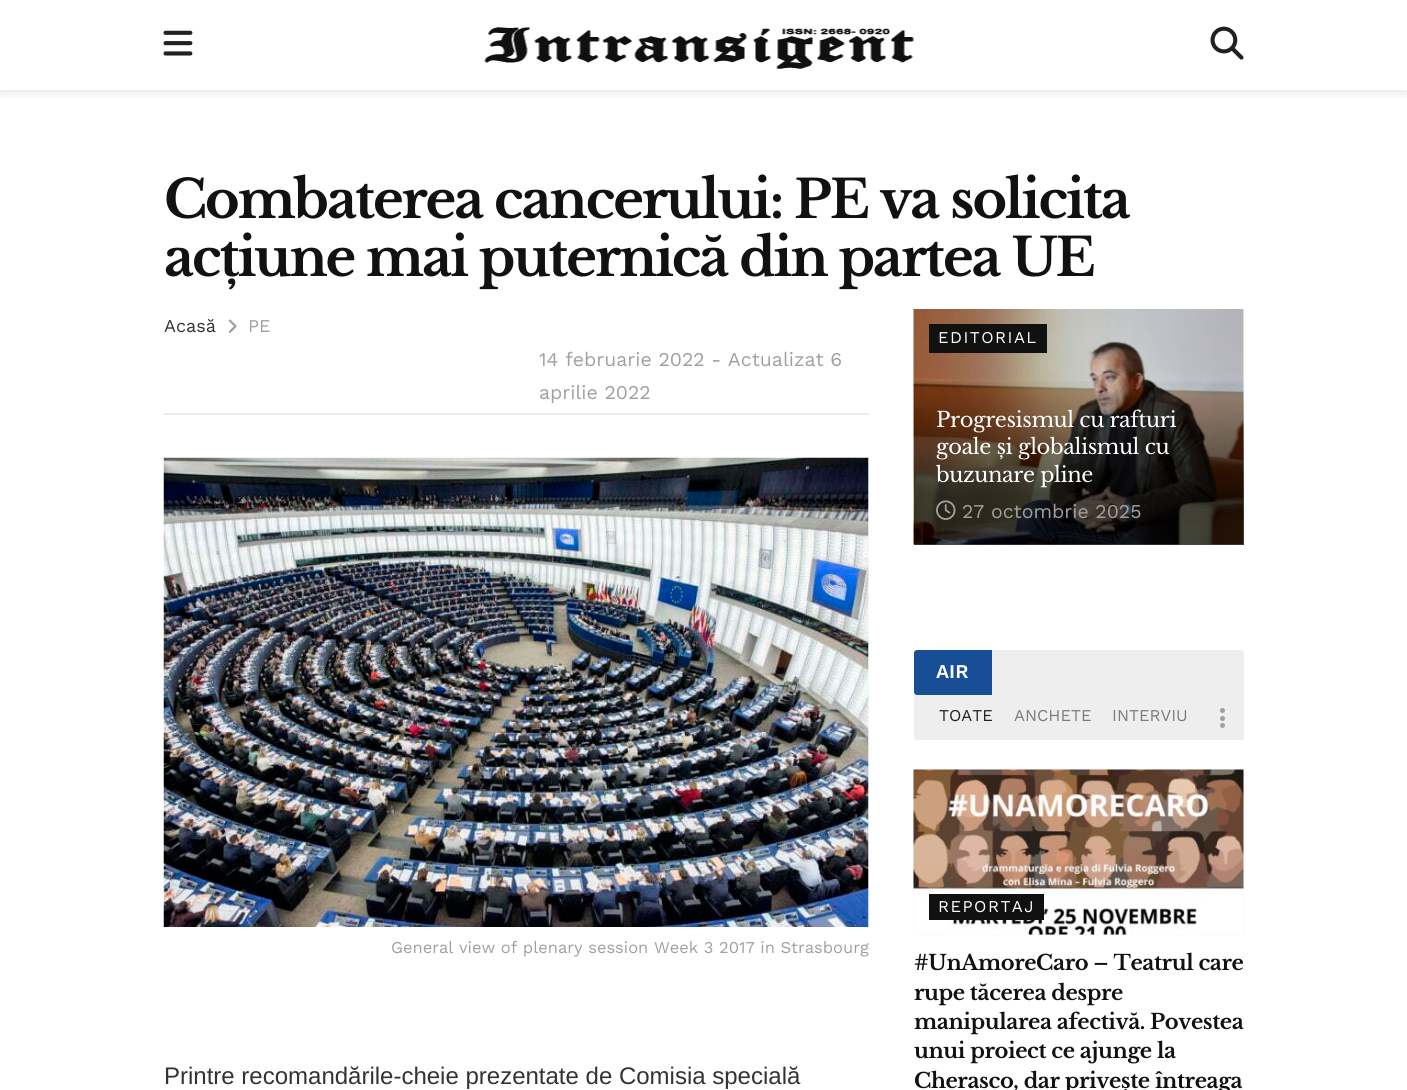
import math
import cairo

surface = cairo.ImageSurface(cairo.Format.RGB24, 1407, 1090)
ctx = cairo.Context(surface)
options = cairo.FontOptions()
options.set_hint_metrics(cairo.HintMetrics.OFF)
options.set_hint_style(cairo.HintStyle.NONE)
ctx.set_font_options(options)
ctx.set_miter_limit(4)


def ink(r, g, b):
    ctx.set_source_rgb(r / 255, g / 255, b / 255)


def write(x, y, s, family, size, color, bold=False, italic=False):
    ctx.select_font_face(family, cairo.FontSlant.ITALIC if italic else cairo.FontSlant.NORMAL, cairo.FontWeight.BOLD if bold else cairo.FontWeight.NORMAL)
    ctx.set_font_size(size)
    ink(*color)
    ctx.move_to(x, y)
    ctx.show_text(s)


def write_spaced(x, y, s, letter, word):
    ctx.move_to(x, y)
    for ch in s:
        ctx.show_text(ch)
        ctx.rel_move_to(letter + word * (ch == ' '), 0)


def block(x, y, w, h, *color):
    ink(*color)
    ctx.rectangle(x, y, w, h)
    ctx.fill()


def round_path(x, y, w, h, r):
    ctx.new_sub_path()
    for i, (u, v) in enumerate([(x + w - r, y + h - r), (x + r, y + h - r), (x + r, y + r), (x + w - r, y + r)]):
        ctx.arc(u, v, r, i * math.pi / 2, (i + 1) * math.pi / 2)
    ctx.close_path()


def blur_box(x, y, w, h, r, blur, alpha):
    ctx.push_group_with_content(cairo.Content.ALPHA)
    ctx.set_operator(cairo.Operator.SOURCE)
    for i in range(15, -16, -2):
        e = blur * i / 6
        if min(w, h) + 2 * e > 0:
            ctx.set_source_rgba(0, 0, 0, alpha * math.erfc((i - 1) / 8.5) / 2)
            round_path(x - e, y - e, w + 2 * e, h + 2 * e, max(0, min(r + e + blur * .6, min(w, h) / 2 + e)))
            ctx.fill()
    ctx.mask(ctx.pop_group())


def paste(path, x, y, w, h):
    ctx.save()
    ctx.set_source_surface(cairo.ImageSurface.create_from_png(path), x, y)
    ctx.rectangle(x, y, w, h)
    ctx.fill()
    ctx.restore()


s1 = dict(family="Work Sans", size=18, color=(51, 51, 51))
s2 = dict(family="Work Sans", size=18, color=(160, 160, 160))
s3 = dict(family="Work Sans", size=19.5, color=(160, 160, 160))
s4 = dict(family="Work Sans", size=16.5, color=(160, 160, 160))
s5 = dict(family="Liberation Sans", size=24, color=(51, 51, 51))
s6 = dict(family="Work Sans SemiBold", size=19.5, color=(255, 255, 255))
s7 = dict(family="Work Sans", size=16.5, color=(33, 33, 33))
s8 = dict(family="Work Sans", size=16.5, color=(123, 123, 123))

ink(255, 255, 255)
ctx.paint()
ctx.save()
ctx.rectangle(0, 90, 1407, 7)
ctx.clip()
ink(0, 0, 0)
blur_box(0, 3, 1407, 90, 0, 4.5, 0.1)
ctx.restore()
paste("pic1.png", 163, 30, 30, 26)
paste("pic2.png", 484, 27, 430, 42)
paste("pic3.png", 1210, 26, 34, 34)
ctx.select_font_face("Libre Baskerville", cairo.FontSlant.NORMAL, cairo.FontWeight.BOLD)
ctx.set_font_size(52.5)
ink(17, 17, 17)
write_spaced(164, 218, "Combaterea cancerului: PE va solicita", -2.1, 0)
write_spaced(164, 276, "acțiune mai puternică din partea UE", -2.1, 0)
write(164, 332, "Acasă", **s1)
paste("pic4.png", 228, 319, 9, 14)
write(248, 332, "PE", **s2)
write(539, 366, "14 februarie 2022 - Actualizat 6", **s3)
write(539, 399, "aprilie 2022", **s3)
block(164, 413, 705, 2, 235, 235, 235)
block(868, 458, 1, 469, 247, 247, 247)
paste("pic5.png", 163, 457, 706, 470)
write(391, 953, "General view of plenary session Week 3 2017 in Strasbourg", **s4)
write(164, 1084, "Printre recomandările-cheie prezentate de Comisia specială", **s5)
block(914, 309, 330, 236, 247, 247, 247)
block(913, 309, 1, 235, 251, 251, 251)
paste("pic6.png", 913, 309, 331, 236)
block(929, 324, 118, 29, 17, 17, 17)
ctx.select_font_face("Work Sans")
ctx.set_font_size(16.5)
ink(255, 255, 255)
write_spaced(938, 343, "EDITORIAL", 1.5, 0)
gradient = cairo.LinearGradient(1079, 377, 1079, 545)
gradient.add_color_stop_rgba(0, 0, 0, 0, 0)
gradient.add_color_stop_rgba(0.7, 0, 0, 0, 0.65)
ctx.set_source(gradient)
ctx.rectangle(914, 381, 330, 164)
ctx.fill()
ctx.select_font_face("Libre Baskerville")
ctx.set_font_size(21)
ink(255, 255, 255)
write_spaced(936, 427, "Progresismul cu rafturi", -0.4, 0)
write_spaced(936, 454, "goale și globalismul cu", -0.4, 0)
write_spaced(936, 482, "buzunare pline", -0.4, 0)
paste("pic7.png", 936, 500, 20, 20)
write(962, 518, "27 octombrie 2025", **s3)
ink(238, 238, 238)
round_path(914, 650, 330, 90, 3)
ctx.fill()
ink(23, 78, 150)
ctx.new_path()
ctx.move_to(917, 650)
ctx.line_to(992, 650)
ctx.line_to(992, 695)
ctx.line_to(917, 695)
ctx.curve_to(915.5, 695, 914, 693.5, 914, 692)
ctx.line_to(914, 653)
ctx.curve_to(914, 651.5, 915.5, 650, 917, 650)
ctx.close_path()
ctx.fill()
write(936, 678, "AIR", **s6)
write(939, 721, "TOATE", **s7)
write(1014, 721, "ANCHETE", **s8)
write(1112, 721, "INTERVIU", **s8)
ink(160, 160, 160)
ctx.new_path()
ctx.arc(1222.5, 710.5, 2.5, 0, 2 * math.pi)
ctx.fill()
ctx.arc(1222.5, 718.5, 2.5, 0, 2 * math.pi)
ctx.fill()
ctx.arc(1222.5, 725.5, 2.5, 0, 2 * math.pi)
ctx.fill()
block(914, 770, 330, 165, 247, 247, 247)
block(913, 769, 330, 165, 247, 247, 247)
paste("pic8.png", 913, 769, 331, 166)
block(929, 894, 115, 26, 17, 17, 17)
ink(255, 255, 255)
write_spaced(938, 912, "REPORTAJ", 1.5, 0)
ctx.select_font_face("Libre Baskerville", cairo.FontSlant.NORMAL, cairo.FontWeight.BOLD)
ctx.set_font_size(21)
ink(17, 17, 17)
write_spaced(914, 970, "#UnAmoreCaro – Teatrul care", -0.4, 0)
write_spaced(914, 1000, "rupe tăcerea despre", -0.4, 0)
write_spaced(914, 1029, "manipularea afectivă. Povestea", -0.4, 0)
write_spaced(914, 1058, "unui proiect ce ajunge la", -0.4, 0)
write_spaced(914, 1088, "Cherasco, dar privește întreaga", -0.4, 0)
surface.write_to_png("screenshot.png")
